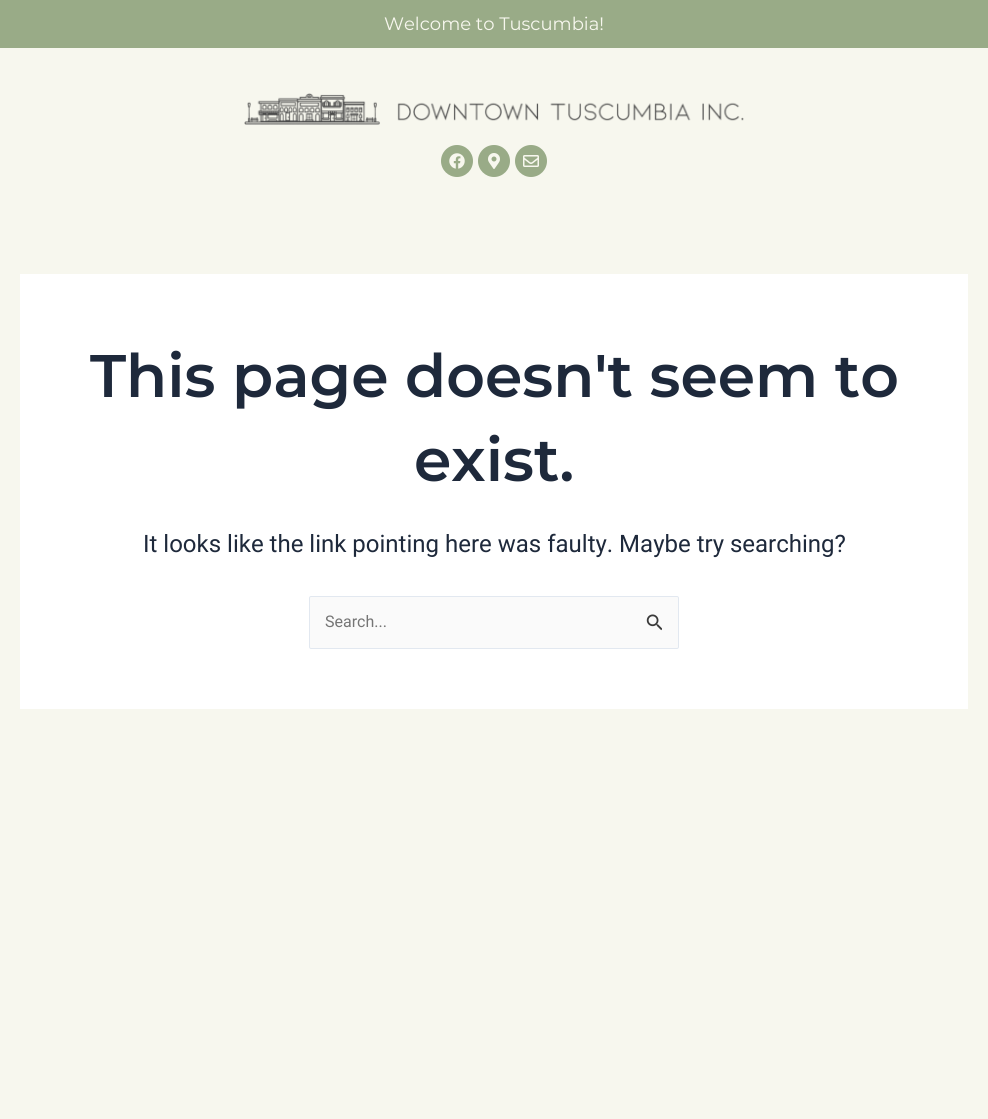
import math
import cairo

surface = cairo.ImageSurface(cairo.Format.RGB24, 988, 1119)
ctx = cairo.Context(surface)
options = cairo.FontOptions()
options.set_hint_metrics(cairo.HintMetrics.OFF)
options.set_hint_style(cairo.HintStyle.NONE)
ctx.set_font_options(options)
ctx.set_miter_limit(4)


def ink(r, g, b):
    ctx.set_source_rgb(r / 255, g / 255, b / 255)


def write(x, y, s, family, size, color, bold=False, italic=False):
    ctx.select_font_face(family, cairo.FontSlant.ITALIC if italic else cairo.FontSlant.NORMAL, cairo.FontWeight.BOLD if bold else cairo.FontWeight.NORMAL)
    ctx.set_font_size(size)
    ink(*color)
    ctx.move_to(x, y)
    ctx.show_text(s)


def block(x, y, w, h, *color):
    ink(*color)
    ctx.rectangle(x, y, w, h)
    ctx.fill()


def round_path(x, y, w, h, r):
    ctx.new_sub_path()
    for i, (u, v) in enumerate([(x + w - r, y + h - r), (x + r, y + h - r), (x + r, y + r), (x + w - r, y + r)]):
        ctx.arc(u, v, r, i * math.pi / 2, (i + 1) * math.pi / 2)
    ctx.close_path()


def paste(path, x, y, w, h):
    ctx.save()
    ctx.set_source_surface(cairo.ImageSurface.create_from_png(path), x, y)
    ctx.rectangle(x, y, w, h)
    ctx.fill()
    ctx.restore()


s1 = dict(family="Montserrat", size=18, color=(247, 247, 238))
s2 = dict(family="Montserrat SemiBold", size=60, color=(30, 41, 59))
s3 = dict(family="Roboto", size=24, color=(30, 41, 59))
s4 = dict(family="Roboto", size=16, color=(117, 117, 117))

ink(247, 247, 238)
ctx.paint()
block(0, 0, 988, 48, 153, 171, 135)
write(384, 30, "Welcome to Tuscumbia!", **s1)
paste("pic1.png", 244, 93, 500, 32)
ink(153, 171, 135)
ctx.arc(457, 161, 16, 0, 2 * math.pi)
ctx.fill()
paste("pic2.png", 449, 153, 16, 16)
ctx.arc(494, 161, 16, 0, 2 * math.pi)
ctx.fill()
paste("pic3.png", 488, 153, 12, 16)
ctx.arc(531, 161, 16, 0, 2 * math.pi)
ctx.fill()
paste("pic4.png", 523, 155, 16, 12)
block(20, 274, 948, 435, 255, 255, 255)
write(90, 397, "This page doesn't seem to", **s2)
write(414, 481, "exist.", **s2)
write(143, 552, "It looks like the link pointing here was faulty. Maybe try searching?", **s3)
ink(250, 250, 250)
round_path(309.5, 596.5, 369, 52, 1.5)
ctx.fill_preserve()
ink(226, 232, 240)
ctx.set_line_width(1)
ctx.stroke()
write(325, 627, "Search...", **s4)
paste("pic5.png", 646, 614, 16, 17)
surface.write_to_png("screenshot.png")
